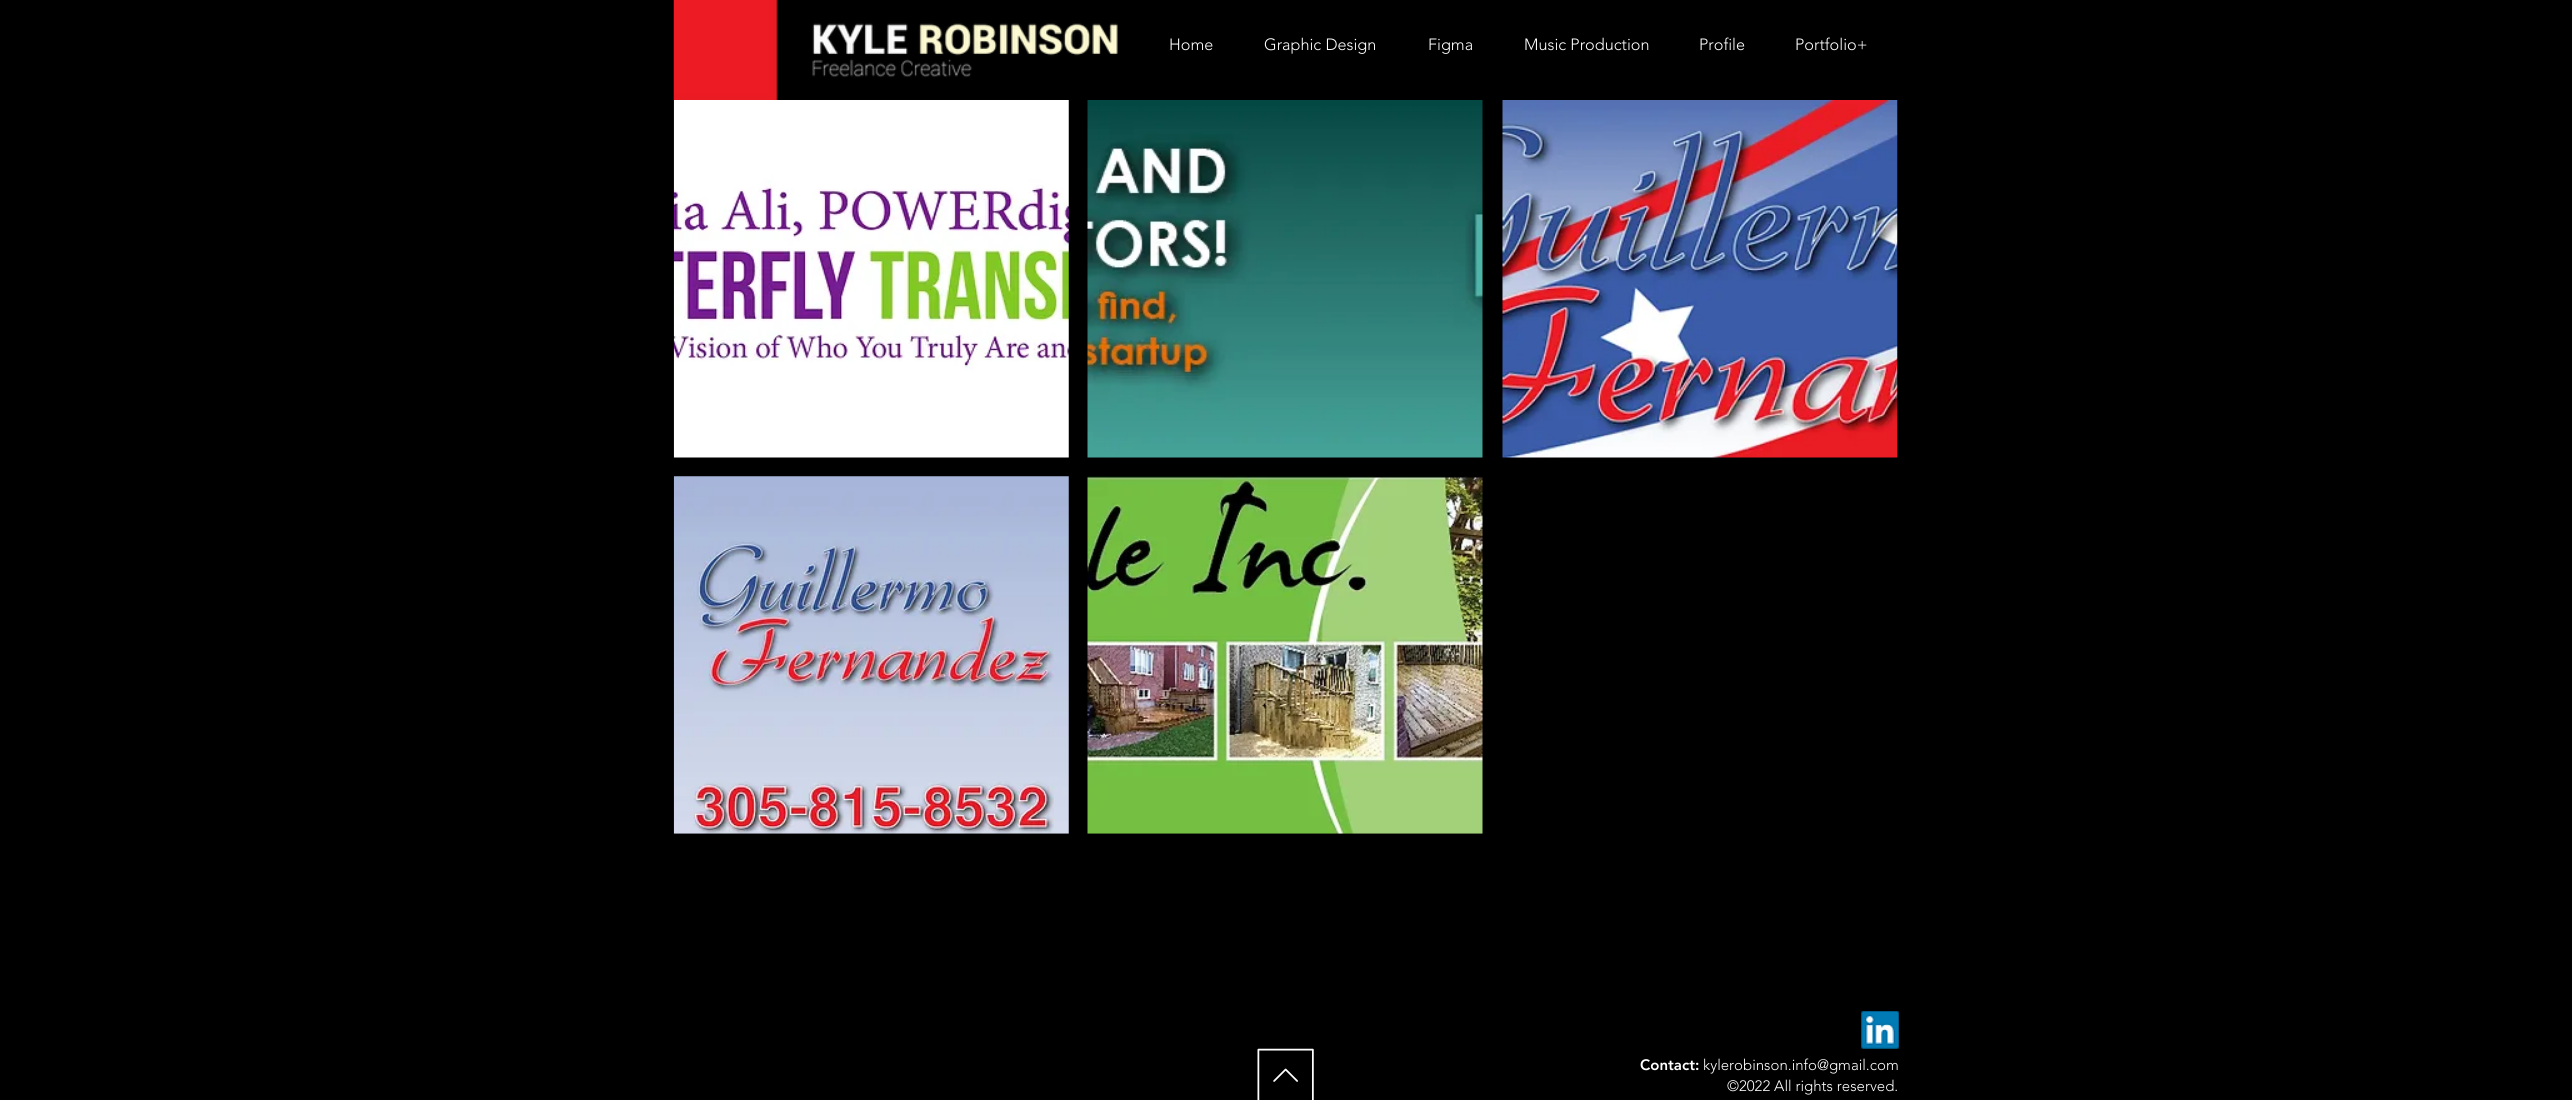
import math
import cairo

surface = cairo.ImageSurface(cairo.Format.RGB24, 2572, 1100)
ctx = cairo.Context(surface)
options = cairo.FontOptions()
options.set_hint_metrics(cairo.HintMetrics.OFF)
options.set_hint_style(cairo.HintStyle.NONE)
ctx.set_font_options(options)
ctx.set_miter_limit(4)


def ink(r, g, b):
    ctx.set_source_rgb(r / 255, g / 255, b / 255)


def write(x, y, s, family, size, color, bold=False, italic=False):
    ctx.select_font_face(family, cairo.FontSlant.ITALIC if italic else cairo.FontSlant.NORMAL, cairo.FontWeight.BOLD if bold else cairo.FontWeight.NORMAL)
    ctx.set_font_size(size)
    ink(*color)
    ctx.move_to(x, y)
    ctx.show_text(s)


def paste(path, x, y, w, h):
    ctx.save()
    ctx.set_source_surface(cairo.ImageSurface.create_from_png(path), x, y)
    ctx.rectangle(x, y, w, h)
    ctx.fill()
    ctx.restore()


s1 = dict(family="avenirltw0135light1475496 Light", size=16.25, color=(255, 255, 255))
s2 = dict(family="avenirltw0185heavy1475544 Black", size=15, color=(255, 255, 255))
s3 = dict(family="avenirltw0135light1475496 Light", size=15, color=(255, 255, 255))

ink(0, 0, 0)
ctx.paint()
paste("pic1.png", 673, 0, 445, 100)
write(1169, 50, "Home", **s1)
write(1264, 50, "Graphic Design", **s1)
write(1428, 50, "Figma", **s1)
write(1524, 50, "Music Production", **s1)
write(1699, 50, "Profile", **s1)
write(1795, 50, "Portfolio+", **s1)
paste("pic2.png", 673, 100, 396, 358)
paste("pic3.png", 1087, 100, 396, 358)
paste("pic4.png", 1502, 100, 396, 358)
paste("pic5.png", 673, 476, 396, 358)
paste("pic6.png", 1087, 476, 396, 358)
paste("pic7.png", 1861, 1011, 38, 38)
paste("pic8.png", 1257, 1048, 57, 52)
write(1640, 1070, "Contact:", **s2)
write(1703, 1070, "kylerobinson.info@gmail.com", **s3)
write(1727, 1091, "©2022 All rights reserved.", **s3)
surface.write_to_png("screenshot.png")
